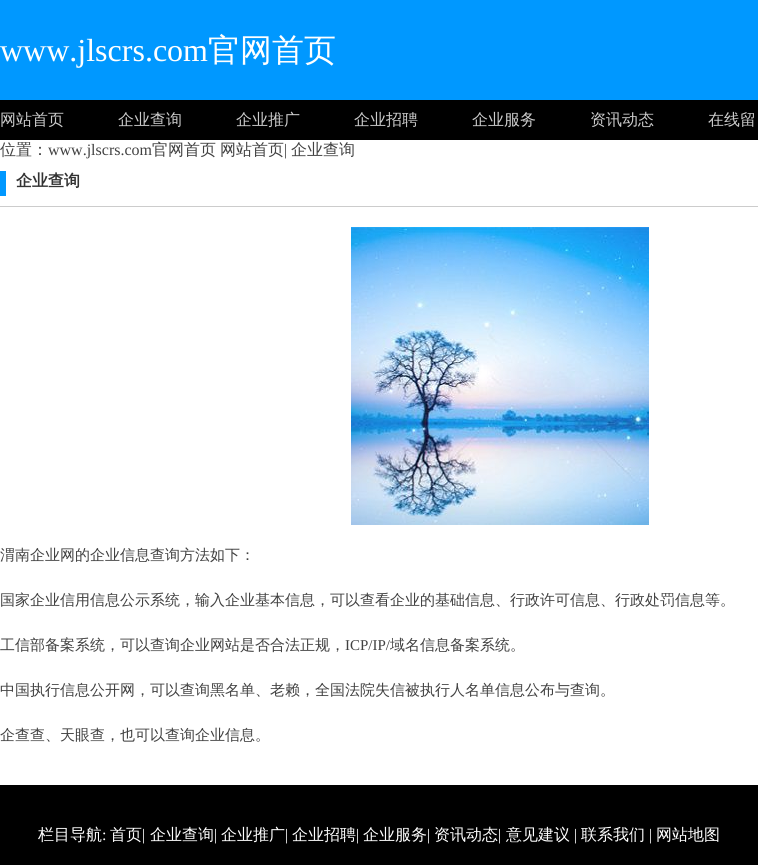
import math
import cairo

surface = cairo.ImageSurface(cairo.Format.RGB24, 758, 865)
ctx = cairo.Context(surface)
options = cairo.FontOptions()
options.set_hint_metrics(cairo.HintMetrics.OFF)
options.set_hint_style(cairo.HintStyle.NONE)
ctx.set_font_options(options)
ctx.set_miter_limit(4)


def ink(r, g, b):
    ctx.set_source_rgb(r / 255, g / 255, b / 255)


def write(x, y, s, family, size, color, bold=False, italic=False):
    ctx.select_font_face(family, cairo.FontSlant.ITALIC if italic else cairo.FontSlant.NORMAL, cairo.FontWeight.BOLD if bold else cairo.FontWeight.NORMAL)
    ctx.set_font_size(size)
    ink(*color)
    ctx.move_to(x, y)
    ctx.show_text(s)


def block(x, y, w, h, *color):
    ink(*color)
    ctx.rectangle(x, y, w, h)
    ctx.fill()


def paste(path, x, y, w, h):
    ctx.save()
    ctx.set_source_surface(cairo.ImageSurface.create_from_png(path), x, y)
    ctx.rectangle(x, y, w, h)
    ctx.fill()
    ctx.restore()


s1 = dict(family="Liberation Serif", size=32, color=(255, 255, 255))
s2 = dict(family="WenQuanYi Zen Hei Medium", size=32, color=(255, 255, 255))
s3 = dict(family="WenQuanYi Zen Hei Medium", size=16, color=(204, 204, 204))
s4 = dict(family="WenQuanYi Zen Hei Medium", size=16, color=(65, 65, 65))
s5 = dict(family="Liberation Serif", size=16, color=(65, 65, 65))
s6 = dict(family="WenQuanYi Zen Hei", size=16, color=(51, 51, 51), bold=True)
s7 = dict(family="WenQuanYi Zen Hei Medium", size=15, color=(65, 65, 65))
s8 = dict(family="Liberation Serif", size=15, color=(65, 65, 65))
s9 = dict(family="WenQuanYi Zen Hei Medium", size=16, color=(255, 255, 255))
s10 = dict(family="Liberation Serif", size=16, color=(255, 255, 255))

ink(255, 255, 255)
ctx.paint()
block(0, 0, 758, 100, 0, 152, 255)
write(0, 61, "www.jlscrs.com", **s1)
write(208, 61, "官网首页", **s2)
block(0, 100, 758, 40, 0, 0, 0)
write(0, 125, "网站首页", **s3)
write(118, 125, "企业查询", **s3)
write(236, 125, "企业推广", **s3)
write(354, 125, "企业招聘", **s3)
write(472, 125, "企业服务", **s3)
write(590, 125, "资讯动态", **s3)
write(708, 125, "在线留", **s3)
write(0, 155, "位置：", **s4)
write(48, 155, "www.jlscrs.com", **s5)
write(152, 155, "官网首页", **s4)
write(220, 155, "网站首页", **s4)
write(284, 155, "|", **s5)
write(291, 155, "企业查询", **s4)
block(0, 206, 758, 1, 204, 204, 204)
block(0, 171, 6, 25, 0, 152, 255)
write(16, 186, "企业查询", **s6)
paste("pic1.png", 351, 227, 298, 298)
write(0, 560, "渭南企业网的企业信息查询方法如下：", **s7)
write(0, 605, "国家企业信用信息公示系统，输入企业基本信息，可以查看企业的基础信息、行政许可信息、行政处罚信息等。", **s7)
write(0, 650, "工信部备案系统，可以查询企业网站是否合法正规，", **s7)
write(345, 650, "ICP/IP/", **s8)
write(390, 650, "域名信息备案系统。", **s7)
write(0, 695, "中国执行信息公开网，可以查询黑名单、老赖，全国法院失信被执行人名单信息公布与查询。", **s7)
write(0, 740, "企查查、天眼查，也可以查询企业信息。", **s7)
block(0, 785, 758, 80, 0, 0, 0)
write(38, 840, "栏目导航", **s9)
write(102, 840, ":", **s10)
write(110, 840, "首页", **s9)
write(142, 840, "|", **s10)
write(150, 840, "企业查询", **s9)
write(214, 840, "|", **s10)
write(221, 840, "企业推广", **s9)
write(285, 840, "|", **s10)
write(292, 840, "企业招聘", **s9)
write(356, 840, "|", **s10)
write(363, 840, "企业服务", **s9)
write(427, 840, "|", **s10)
write(434, 840, "资讯动态", **s9)
write(498, 840, "|", **s10)
write(506, 840, "意见建议", **s9)
write(574, 840, "|", **s10)
write(581, 840, "联系我们", **s9)
write(649, 840, "|", **s10)
write(656, 840, "网站地图", **s9)
surface.write_to_png("screenshot.png")
